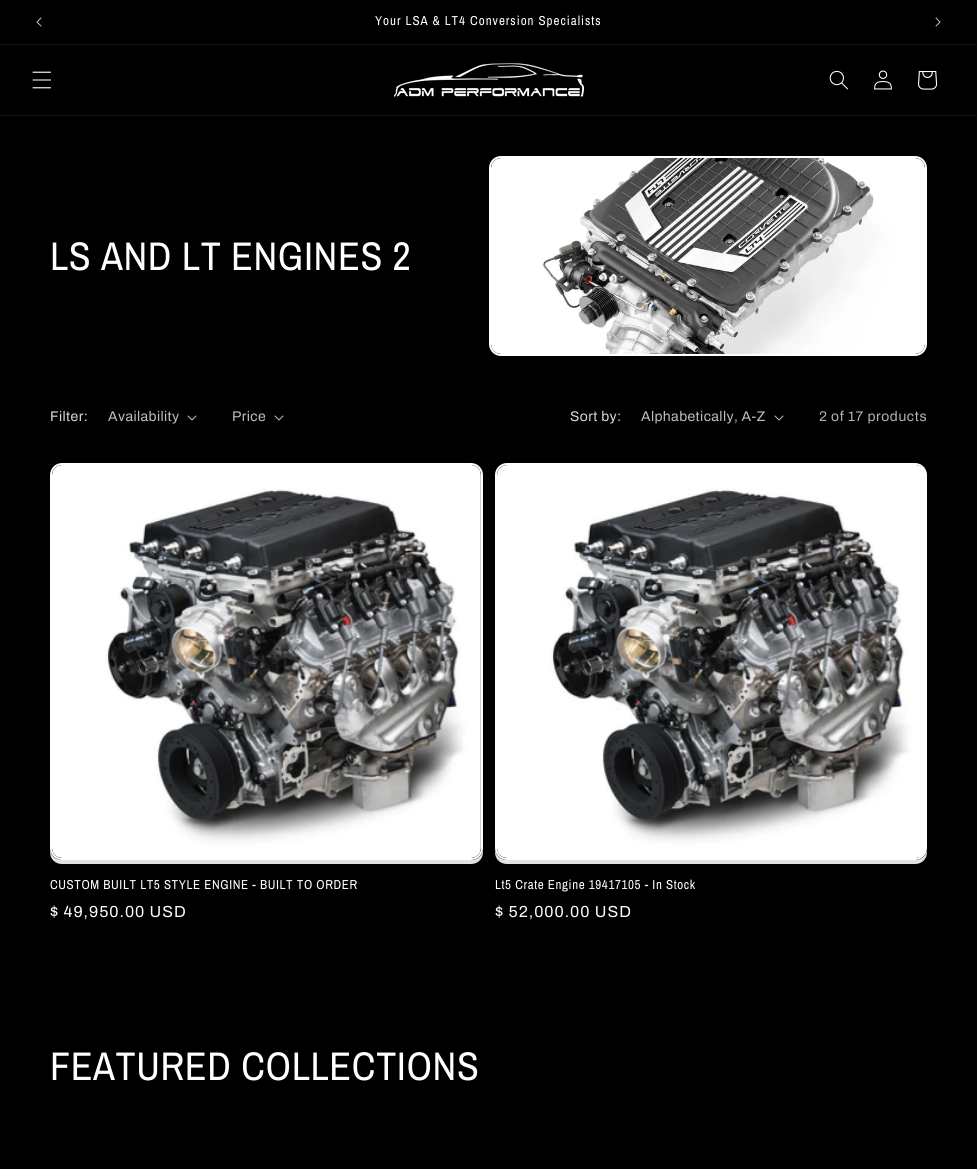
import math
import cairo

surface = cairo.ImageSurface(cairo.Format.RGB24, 977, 1169)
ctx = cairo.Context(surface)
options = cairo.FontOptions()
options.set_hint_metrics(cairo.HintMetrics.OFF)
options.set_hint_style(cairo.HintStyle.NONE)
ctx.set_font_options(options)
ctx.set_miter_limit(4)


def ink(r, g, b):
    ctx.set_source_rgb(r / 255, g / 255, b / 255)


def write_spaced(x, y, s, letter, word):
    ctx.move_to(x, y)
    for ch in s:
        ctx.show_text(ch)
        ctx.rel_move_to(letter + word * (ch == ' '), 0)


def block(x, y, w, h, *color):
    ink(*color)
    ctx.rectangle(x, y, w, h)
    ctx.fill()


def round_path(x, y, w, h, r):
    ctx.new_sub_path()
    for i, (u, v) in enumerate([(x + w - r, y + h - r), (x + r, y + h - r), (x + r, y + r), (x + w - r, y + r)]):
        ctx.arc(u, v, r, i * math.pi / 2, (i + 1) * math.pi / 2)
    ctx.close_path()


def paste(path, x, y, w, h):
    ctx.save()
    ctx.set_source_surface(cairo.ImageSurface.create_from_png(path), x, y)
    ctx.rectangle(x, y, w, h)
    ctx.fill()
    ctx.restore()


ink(0, 0, 0)
ctx.paint()
block(0, 44, 977, 1, 20, 20, 20)
paste("pic1.png", 36, 17, 6, 10)
ctx.select_font_face("Archivo Narrow")
ctx.set_font_size(13)
ink(255, 255, 255)
write_spaced(375, 25, "Your LSA & LT4 Conversion Specialists", 1, 0)
paste("pic2.png", 935, 17, 6, 10)
block(0, 115, 977, 1, 20, 20, 20)
paste("pic3.png", 32, 71, 20, 18)
paste("pic4.png", 394, 63, 190, 34)
paste("pic5.png", 829, 70, 19, 20)
paste("pic6.png", 874, 70, 18, 20)
paste("pic7.png", 918, 71, 20, 19)
ctx.set_font_size(40)
ink(255, 255, 255)
write_spaced(50, 270, "LS AND LT ENGINES 2", 0.6, 0)
round_path(490, 157, 436, 198, 11)
ctx.stroke()
paste("pic8.png", 491, 158, 434, 196)
ctx.select_font_face("Archivo")
ctx.set_font_size(14)
ink(217, 217, 217)
write_spaced(50, 421, "Filter:", 0.4, 0)
ink(191, 191, 191)
write_spaced(108, 421, "Availability", 0.4, 0)
paste("pic9.png", 187, 415, 10, 6)
write_spaced(232, 421, "Price", 0.4, 0)
paste("pic9.png", 274, 415, 10, 6)
ink(217, 217, 217)
write_spaced(570, 421, "Sort by:", 0.4, 0)
ink(191, 191, 191)
write_spaced(641, 421, "Alphabetically, A-Z", 0.4, 0)
paste("pic9.png", 774, 415, 10, 6)
ink(179, 179, 179)
write_spaced(819, 421, "2 of 17 products", 0.6, 0)
round_path(51, 464, 431, 395, 11)
ink(255, 255, 255)
ctx.stroke()
ink(226, 226, 226)
ctx.new_path()
ctx.move_to(50, 848)
ctx.line_to(50, 852)
ctx.curve_to(50, 859, 55, 864, 62, 864)
ctx.line_to(471, 864)
ctx.curve_to(478, 864, 483, 859, 483, 852)
ctx.line_to(483, 848)
ctx.curve_to(483, 855, 478, 860, 471, 860)
ctx.line_to(62, 860)
ctx.curve_to(55, 860, 50, 855, 50, 848)
ctx.close_path()
ctx.fill()
paste("pic10.png", 52, 465, 429, 393)
ctx.select_font_face("Archivo Narrow")
ctx.set_font_size(13)
ink(255, 255, 255)
write_spaced(50, 889, "CUSTOM BUILT LT5 STYLE ENGINE - BUILT TO ORDER", 0.6, 0)
ctx.select_font_face("Archivo")
ctx.set_font_size(16)
write_spaced(50, 917, "$ 49,950.00 USD", 1, 0)
round_path(496, 464, 430, 395, 11)
ctx.stroke()
ink(226, 226, 226)
ctx.new_path()
ctx.move_to(495, 848)
ctx.line_to(495, 852)
ctx.curve_to(495, 859, 500, 864, 507, 864)
ctx.line_to(915, 864)
ctx.curve_to(922, 864, 927, 859, 927, 852)
ctx.line_to(927, 848)
ctx.curve_to(927, 855, 922, 860, 915, 860)
ctx.line_to(507, 860)
ctx.curve_to(500, 860, 495, 855, 495, 848)
ctx.close_path()
ctx.fill()
paste("pic11.png", 497, 465, 428, 393)
ctx.select_font_face("Archivo Narrow")
ctx.set_font_size(13)
ink(255, 255, 255)
write_spaced(495, 889, "Lt5 Crate Engine 19417105 - In Stock", 0.6, 0)
ctx.select_font_face("Archivo")
ctx.set_font_size(16)
write_spaced(495, 917, "$ 52,000.00 USD", 1, 0)
ctx.select_font_face("Archivo Narrow")
ctx.set_font_size(40)
write_spaced(50, 1080, "FEATURED COLLECTIONS", 0.6, 0)
surface.write_to_png("screenshot.png")
